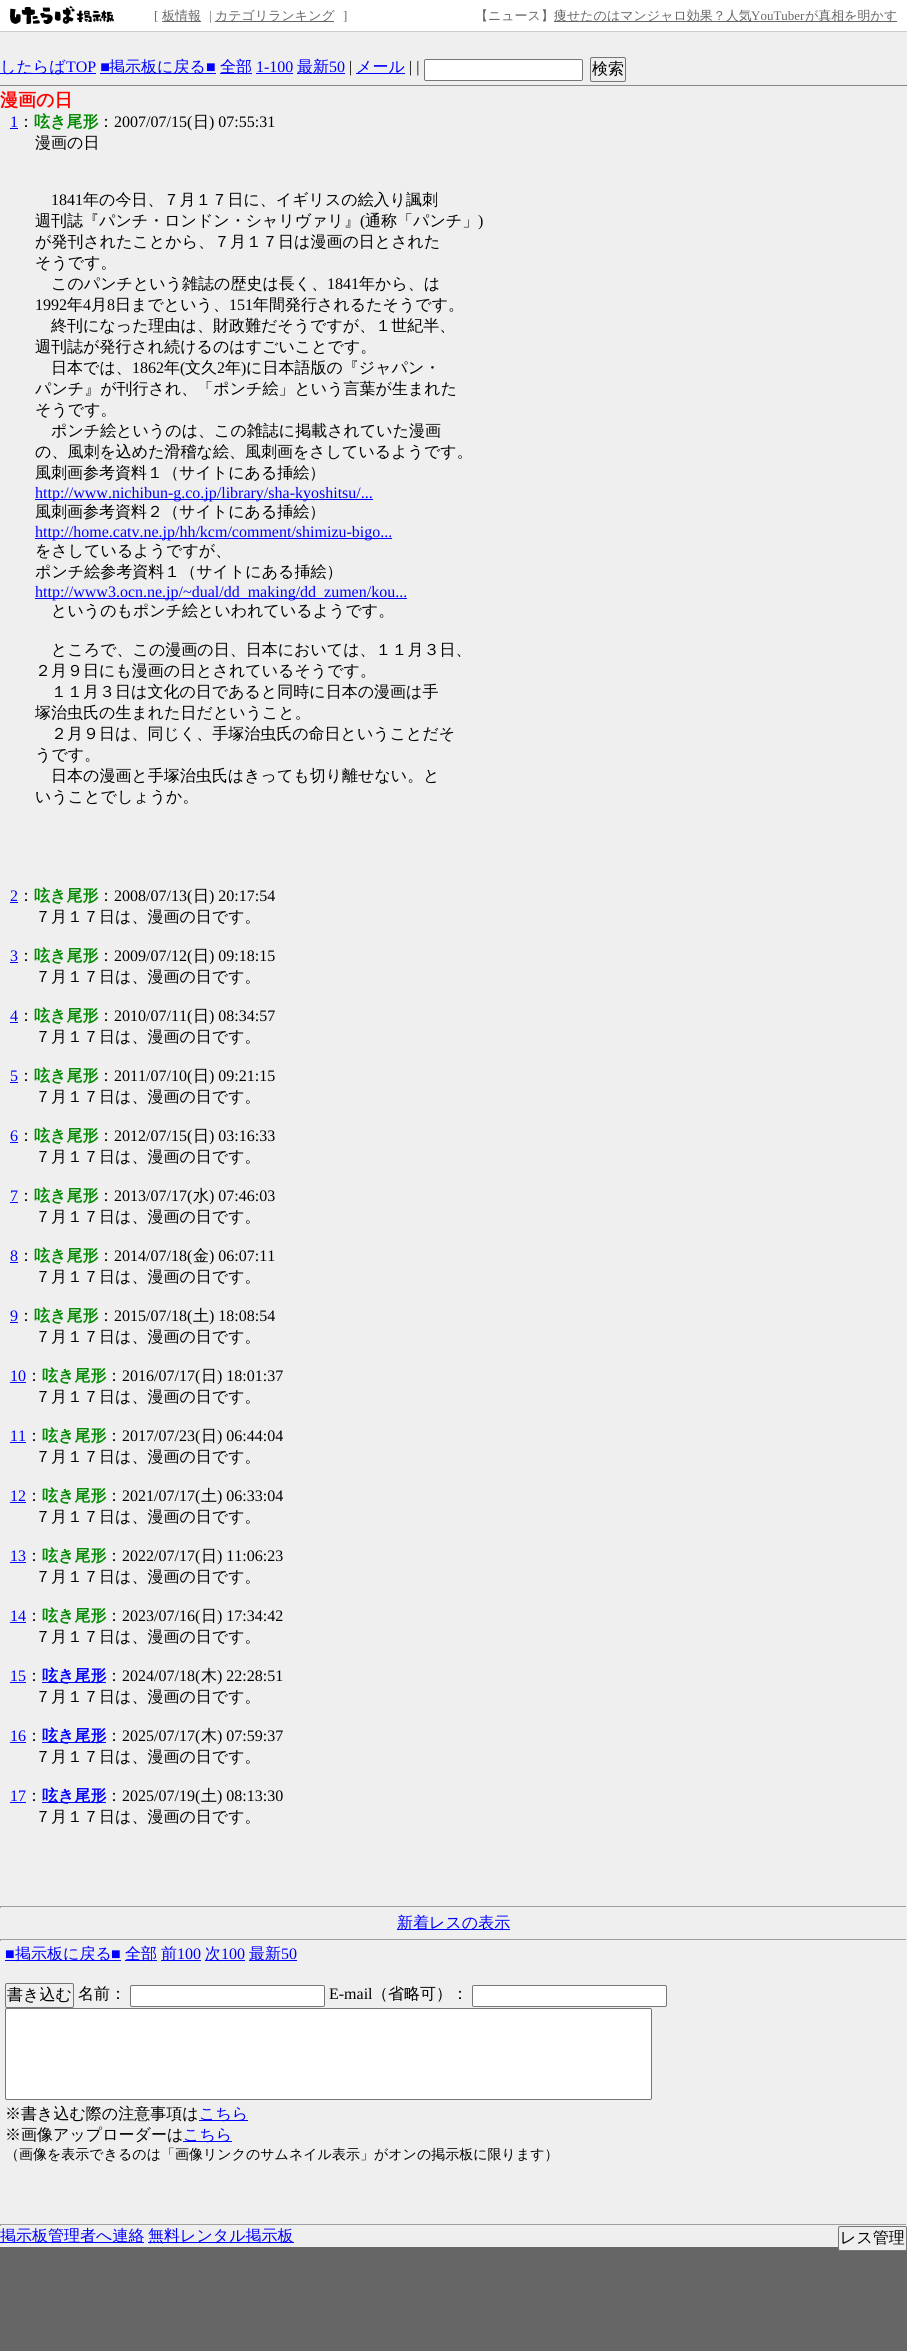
import math
import cairo

surface = cairo.ImageSurface(cairo.Format.RGB24, 907, 2351)
ctx = cairo.Context(surface)
options = cairo.FontOptions()
options.set_hint_metrics(cairo.HintMetrics.OFF)
options.set_hint_style(cairo.HintStyle.NONE)
ctx.set_font_options(options)
ctx.set_miter_limit(4)


def ink(r, g, b):
    ctx.set_source_rgb(r / 255, g / 255, b / 255)


def write(x, y, s, family, size, color, bold=False, italic=False):
    ctx.select_font_face(family, cairo.FontSlant.ITALIC if italic else cairo.FontSlant.NORMAL, cairo.FontWeight.BOLD if bold else cairo.FontWeight.NORMAL)
    ctx.set_font_size(size)
    ink(*color)
    ctx.move_to(x, y)
    ctx.show_text(s)


def block(x, y, w, h, *color):
    ink(*color)
    ctx.rectangle(x, y, w, h)
    ctx.fill()


def round_path(x, y, w, h, r):
    ctx.new_sub_path()
    for i, (u, v) in enumerate([(x + w - r, y + h - r), (x + r, y + h - r), (x + r, y + r), (x + w - r, y + r)]):
        ctx.arc(u, v, r, i * math.pi / 2, (i + 1) * math.pi / 2)
    ctx.close_path()


def paste(path, x, y, w, h):
    ctx.save()
    ctx.set_source_surface(cairo.ImageSurface.create_from_png(path), x, y)
    ctx.rectangle(x, y, w, h)
    ctx.fill()
    ctx.restore()


s1 = dict(family="Liberation Serif", size=13, color=(102, 102, 102))
s2 = dict(family="WenQuanYi Zen Hei Medium", size=13, color=(102, 102, 102))
s3 = dict(family="WenQuanYi Zen Hei Medium", size=16, color=(0, 0, 255))
s4 = dict(family="Liberation Serif", size=16, color=(0, 0, 255))
s5 = dict(family="Liberation Serif", size=16, color=(0, 0, 0))
s6 = dict(family="WenQuanYi Zen Hei Medium", size=16, color=(0, 0, 0))
s7 = dict(family="WenQuanYi Zen Hei", size=18, color=(255, 0, 0), bold=True)
s8 = dict(family="WenQuanYi Zen Hei", size=16, color=(0, 136, 0), bold=True)
s9 = dict(family="WenQuanYi Zen Hei", size=16, color=(0, 0, 255), bold=True)
s10 = dict(family="WenQuanYi Zen Hei Medium", size=14, color=(0, 0, 0))

ink(102, 102, 102)
ctx.paint()
block(0, 32, 907, 2215, 239, 239, 239)
block(0, 0, 907, 31, 255, 255, 255)
block(0, 31, 907, 1, 204, 204, 204)
paste("pic1.png", 10, 6, 104, 19)
write(154, 20, "[", **s1)
block(162, 21, 39, 1, 102, 102, 102)
write(162, 20, "板情報", **s2)
write(209, 20, "|", **s1)
block(215, 21, 119, 1, 102, 102, 102)
write(215, 20, "カテゴリランキング", **s2)
write(343, 20, "]", **s1)
write(475, 20, "【ニュース】", **s2)
block(554, 21, 343, 1, 102, 102, 102)
write(554, 20, "痩せたのはマンジャロ効果？人気", **s2)
write(751, 20, "YouTuber", **s1)
write(805, 20, "が真相を明かす", **s2)
block(0, 85, 907, 1, 136, 136, 136)
block(0, 73, 96, 1, 0, 0, 255)
write(0, 72, "したらば", **s3)
write(66, 72, "TOP ■", **s4)
block(100, 73, 116, 1, 0, 0, 255)
write(109, 72, "掲示板に戻る", **s3)
write(206, 72, "■", **s4)
block(220, 73, 32, 1, 0, 0, 255)
write(220, 72, "全部", **s3)
write(256, 72, "1-100", **s4)
block(256, 73, 37, 1, 0, 0, 255)
block(297, 73, 48, 1, 0, 0, 255)
write(297, 72, "最新", **s3)
write(329, 72, "50", **s4)
write(349, 72, "|", **s5)
write(356, 72, "メール", **s3)
block(356, 73, 49, 1, 0, 0, 255)
write(409, 72, "| |", **s5)
ink(255, 255, 255)
round_path(424.5, 59.5, 158, 21, 1.5)
ctx.fill_preserve()
ink(118, 118, 118)
ctx.set_line_width(1)
ctx.stroke()
round_path(590.5, 57.5, 35, 24, 1.5)
ctx.stroke()
write(592, 74, "検索", **s6)
write(0, 106, "漫画の日", **s7)
write(10, 127, "1", **s4)
block(10, 128, 8, 1, 0, 0, 255)
write(18, 127, "：", **s6)
write(34, 127, "呟き尾形", **s8)
write(98, 127, "：", **s6)
write(114, 127, "2007/07/15(", **s5)
write(193, 127, "日", **s6)
write(209, 127, ") 07:55:31", **s5)
write(35, 148, "漫画の日", **s6)
write(51, 205, "1841", **s5)
write(83, 205, "年の今日、７月１７日に、イギリスの絵入り諷刺", **s6)
write(35, 226, "週刊誌『パンチ・ロンドン・シャリヴァリ』", **s6)
write(360, 226, "(", **s5)
write(365, 226, "通称「パンチ」", **s6)
write(478, 226, ")", **s5)
write(35, 247, "が発刊されたことから、７月１７日は漫画の日とされた", **s6)
write(35, 268, "そうです。", **s6)
write(51, 289, "このパンチという雑誌の歴史は長く、", **s6)
write(327, 289, "1841", **s5)
write(359, 289, "年から、は", **s6)
write(35, 310, "1992", **s5)
write(67, 310, "年", **s6)
write(83, 310, "4", **s5)
write(91, 310, "月", **s6)
write(107, 310, "8", **s5)
write(115, 310, "日までという、", **s6)
write(229, 310, "151", **s5)
write(253, 310, "年間発行されるたそうです。", **s6)
write(51, 331, "終刊になった理由は、財政難だそうですが、１世紀半、", **s6)
write(35, 352, "週刊誌が発行され続けるのはすごいことです。", **s6)
write(51, 373, "日本では、", **s6)
write(132, 373, "1862", **s5)
write(164, 373, "年", **s6)
write(180, 373, "(", **s5)
write(185, 373, "文久", **s6)
write(217, 373, "2", **s5)
write(225, 373, "年", **s6)
write(241, 373, ")", **s5)
write(246, 373, "に日本語版の『ジャパン・", **s6)
write(35, 394, "パンチ』が刊行され、「ポンチ絵」という言葉が生まれた", **s6)
write(35, 415, "そうです。", **s6)
write(51, 436, "ポンチ絵というのは、この雑誌に掲載されていた漫画", **s6)
write(35, 457, "の、風刺を込めた滑稽な絵、風刺画をさしているようです。", **s6)
write(35, 478, "風刺画参考資料１（サイトにある挿絵）", **s6)
block(35, 499, 338, 1, 0, 0, 255)
write(35, 498, "http://www.nichibun-g.co.jp/library/sha-kyoshitsu/...", **s4)
write(35, 517, "風刺画参考資料２（サイトにある挿絵）", **s6)
block(35, 538, 357, 1, 0, 0, 255)
write(35, 537, "http://home.catv.ne.jp/hh/kcm/comment/shimizu-bigo...", **s4)
write(35, 556, "をさしているようですが、", **s6)
write(35, 577, "ポンチ絵参考資料１（サイトにある挿絵）", **s6)
block(35, 598, 372, 1, 0, 0, 255)
write(35, 597, "http://www3.ocn.ne.jp/~dual/dd_making/dd_zumen/kou...", **s4)
write(51, 616, "というのもポンチ絵といわれているようです。", **s6)
write(51, 655, "ところで、この漫画の日、日本においては、１１月３日、", **s6)
write(35, 676, "２月９日にも漫画の日とされているそうです。", **s6)
write(51, 697, "１１月３日は文化の日であると同時に日本の漫画は手", **s6)
write(35, 718, "塚治虫氏の生まれた日だということ。", **s6)
write(51, 739, "２月９日は、同じく、手塚治虫氏の命日ということだそ", **s6)
write(35, 760, "うです。", **s6)
write(51, 781, "日本の漫画と手塚治虫氏はきっても切り離せない。と", **s6)
write(35, 802, "いうことでしょうか。", **s6)
write(10, 901, "2", **s4)
block(10, 902, 8, 1, 0, 0, 255)
write(18, 901, "：", **s6)
write(34, 901, "呟き尾形", **s8)
write(98, 901, "：", **s6)
write(114, 901, "2008/07/13(", **s5)
write(193, 901, "日", **s6)
write(209, 901, ") 20:17:54", **s5)
write(35, 922, "７月１７日は、漫画の日です。", **s6)
write(10, 961, "3", **s4)
block(10, 962, 8, 1, 0, 0, 255)
write(18, 961, "：", **s6)
write(34, 961, "呟き尾形", **s8)
write(98, 961, "：", **s6)
write(114, 961, "2009/07/12(", **s5)
write(193, 961, "日", **s6)
write(209, 961, ") 09:18:15", **s5)
write(35, 982, "７月１７日は、漫画の日です。", **s6)
write(10, 1021, "4", **s4)
block(10, 1022, 8, 1, 0, 0, 255)
write(18, 1021, "：", **s6)
write(34, 1021, "呟き尾形", **s8)
write(98, 1021, "：", **s6)
write(114, 1021, "2010/07/11(", **s5)
write(193, 1021, "日", **s6)
write(209, 1021, ") 08:34:57", **s5)
write(35, 1042, "７月１７日は、漫画の日です。", **s6)
write(10, 1081, "5", **s4)
block(10, 1082, 8, 1, 0, 0, 255)
write(18, 1081, "：", **s6)
write(34, 1081, "呟き尾形", **s8)
write(98, 1081, "：", **s6)
write(114, 1081, "2011/07/10(", **s5)
write(193, 1081, "日", **s6)
write(209, 1081, ") 09:21:15", **s5)
write(35, 1102, "７月１７日は、漫画の日です。", **s6)
write(10, 1141, "6", **s4)
block(10, 1142, 8, 1, 0, 0, 255)
write(18, 1141, "：", **s6)
write(34, 1141, "呟き尾形", **s8)
write(98, 1141, "：", **s6)
write(114, 1141, "2012/07/15(", **s5)
write(193, 1141, "日", **s6)
write(209, 1141, ") 03:16:33", **s5)
write(35, 1162, "７月１７日は、漫画の日です。", **s6)
write(10, 1201, "7", **s4)
block(10, 1202, 8, 1, 0, 0, 255)
write(18, 1201, "：", **s6)
write(34, 1201, "呟き尾形", **s8)
write(98, 1201, "：", **s6)
write(114, 1201, "2013/07/17(", **s5)
write(193, 1201, "水", **s6)
write(209, 1201, ") 07:46:03", **s5)
write(35, 1222, "７月１７日は、漫画の日です。", **s6)
write(10, 1261, "8", **s4)
block(10, 1262, 8, 1, 0, 0, 255)
write(18, 1261, "：", **s6)
write(34, 1261, "呟き尾形", **s8)
write(98, 1261, "：", **s6)
write(114, 1261, "2014/07/18(", **s5)
write(193, 1261, "金", **s6)
write(209, 1261, ") 06:07:11", **s5)
write(35, 1282, "７月１７日は、漫画の日です。", **s6)
write(10, 1321, "9", **s4)
block(10, 1322, 8, 1, 0, 0, 255)
write(18, 1321, "：", **s6)
write(34, 1321, "呟き尾形", **s8)
write(98, 1321, "：", **s6)
write(114, 1321, "2015/07/18(", **s5)
write(193, 1321, "土", **s6)
write(209, 1321, ") 18:08:54", **s5)
write(35, 1342, "７月１７日は、漫画の日です。", **s6)
write(10, 1381, "10", **s4)
block(10, 1382, 16, 1, 0, 0, 255)
write(26, 1381, "：", **s6)
write(42, 1381, "呟き尾形", **s8)
write(106, 1381, "：", **s6)
write(122, 1381, "2016/07/17(", **s5)
write(201, 1381, "日", **s6)
write(217, 1381, ") 18:01:37", **s5)
write(35, 1402, "７月１７日は、漫画の日です。", **s6)
write(10, 1441, "11", **s4)
block(10, 1442, 16, 1, 0, 0, 255)
write(26, 1441, "：", **s6)
write(42, 1441, "呟き尾形", **s8)
write(106, 1441, "：", **s6)
write(122, 1441, "2017/07/23(", **s5)
write(201, 1441, "日", **s6)
write(217, 1441, ") 06:44:04", **s5)
write(35, 1462, "７月１７日は、漫画の日です。", **s6)
write(10, 1501, "12", **s4)
block(10, 1502, 16, 1, 0, 0, 255)
write(26, 1501, "：", **s6)
write(42, 1501, "呟き尾形", **s8)
write(106, 1501, "：", **s6)
write(122, 1501, "2021/07/17(", **s5)
write(201, 1501, "土", **s6)
write(217, 1501, ") 06:33:04", **s5)
write(35, 1522, "７月１７日は、漫画の日です。", **s6)
write(10, 1561, "13", **s4)
block(10, 1562, 16, 1, 0, 0, 255)
write(26, 1561, "：", **s6)
write(42, 1561, "呟き尾形", **s8)
write(106, 1561, "：", **s6)
write(122, 1561, "2022/07/17(", **s5)
write(201, 1561, "日", **s6)
write(217, 1561, ") 11:06:23", **s5)
write(35, 1582, "７月１７日は、漫画の日です。", **s6)
write(10, 1621, "14", **s4)
block(10, 1622, 16, 1, 0, 0, 255)
write(26, 1621, "：", **s6)
write(42, 1621, "呟き尾形", **s8)
write(106, 1621, "：", **s6)
write(122, 1621, "2023/07/16(", **s5)
write(201, 1621, "日", **s6)
write(217, 1621, ") 17:34:42", **s5)
write(35, 1642, "７月１７日は、漫画の日です。", **s6)
write(10, 1681, "15", **s4)
block(10, 1682, 16, 1, 0, 0, 255)
write(26, 1681, "：", **s6)
block(42, 1682, 64, 1, 0, 0, 255)
write(42, 1681, "呟き尾形", **s9)
write(106, 1681, "：", **s6)
write(122, 1681, "2024/07/18(", **s5)
write(201, 1681, "木", **s6)
write(217, 1681, ") 22:28:51", **s5)
write(35, 1702, "７月１７日は、漫画の日です。", **s6)
write(10, 1741, "16", **s4)
block(10, 1742, 16, 1, 0, 0, 255)
write(26, 1741, "：", **s6)
block(42, 1742, 64, 1, 0, 0, 255)
write(42, 1741, "呟き尾形", **s9)
write(106, 1741, "：", **s6)
write(122, 1741, "2025/07/17(", **s5)
write(201, 1741, "木", **s6)
write(217, 1741, ") 07:59:37", **s5)
write(35, 1762, "７月１７日は、漫画の日です。", **s6)
write(10, 1801, "17", **s4)
block(10, 1802, 16, 1, 0, 0, 255)
write(26, 1801, "：", **s6)
block(42, 1802, 64, 1, 0, 0, 255)
write(42, 1801, "呟き尾形", **s9)
write(106, 1801, "：", **s6)
write(122, 1801, "2025/07/19(", **s5)
write(201, 1801, "土", **s6)
write(217, 1801, ") 08:13:30", **s5)
write(35, 1822, "７月１７日は、漫画の日です。", **s6)
block(0, 1906, 907, 1, 159, 159, 159)
block(906, 1906, 1, 2, 238, 238, 238)
block(0, 1906, 1, 2, 159, 159, 159)
block(397, 1929, 113, 1, 0, 0, 255)
write(397, 1928, "新着レスの表示", **s3)
block(0, 1939, 907, 1, 159, 159, 159)
block(906, 1939, 1, 2, 238, 238, 238)
block(0, 1939, 1, 2, 159, 159, 159)
write(5, 1959, "■", **s4)
block(5, 1960, 116, 1, 0, 0, 255)
write(15, 1959, "掲示板に戻る", **s3)
write(111, 1959, "■", **s4)
block(125, 1960, 32, 1, 0, 0, 255)
write(125, 1959, "全部", **s3)
block(161, 1960, 40, 1, 0, 0, 255)
write(161, 1959, "前", **s3)
write(177, 1959, "100", **s4)
block(205, 1960, 40, 1, 0, 0, 255)
write(205, 1959, "次", **s3)
write(221, 1959, "100", **s4)
block(249, 1960, 48, 1, 0, 0, 255)
write(249, 1959, "最新", **s3)
write(281, 1959, "50", **s4)
round_path(5.5, 1983.5, 68, 24, 1.5)
ink(118, 118, 118)
ctx.stroke()
write(7, 2000, "書き込む", **s6)
write(78, 1999, "名前：", **s6)
ink(255, 255, 255)
round_path(130.5, 1985.5, 194, 21, 1.5)
ctx.fill_preserve()
ink(118, 118, 118)
ctx.stroke()
write(329, 1999, "E-mail", **s5)
write(372, 1999, "（省略可）：", **s6)
ink(255, 255, 255)
round_path(472.5, 1985.5, 194, 21, 1.5)
ctx.fill_preserve()
ink(118, 118, 118)
ctx.stroke()
ink(255, 255, 255)
round_path(5.5, 2008.5, 646, 91, 1.5)
ctx.fill_preserve()
ink(118, 118, 118)
ctx.stroke()
write(5, 2119, "※書き込む際の注意事項は", **s6)
block(199, 2120, 49, 1, 0, 0, 255)
write(199, 2119, "こちら", **s3)
write(5, 2140, "※画像アップローダーは", **s6)
block(183, 2141, 49, 1, 0, 0, 255)
write(183, 2140, "こちら", **s3)
write(5, 2159, "（画像を表示できるのは「画像リンクのサムネイル表示」がオンの掲示板に限ります）", **s10)
block(0, 2224, 907, 1, 159, 159, 159)
block(906, 2224, 1, 2, 238, 238, 238)
block(0, 2224, 1, 2, 159, 159, 159)
block(0, 2242, 144, 1, 0, 0, 255)
write(0, 2241, "掲示板管理者へ連絡", **s3)
block(148, 2242, 146, 1, 0, 0, 255)
write(148, 2241, "無料レンタル掲示板", **s3)
ink(239, 239, 239)
round_path(838.5, 2226.5, 68, 24, 1.5)
ctx.fill_preserve()
ink(118, 118, 118)
ctx.stroke()
write(840, 2243, "レス管理", **s6)
surface.write_to_png("screenshot.png")
